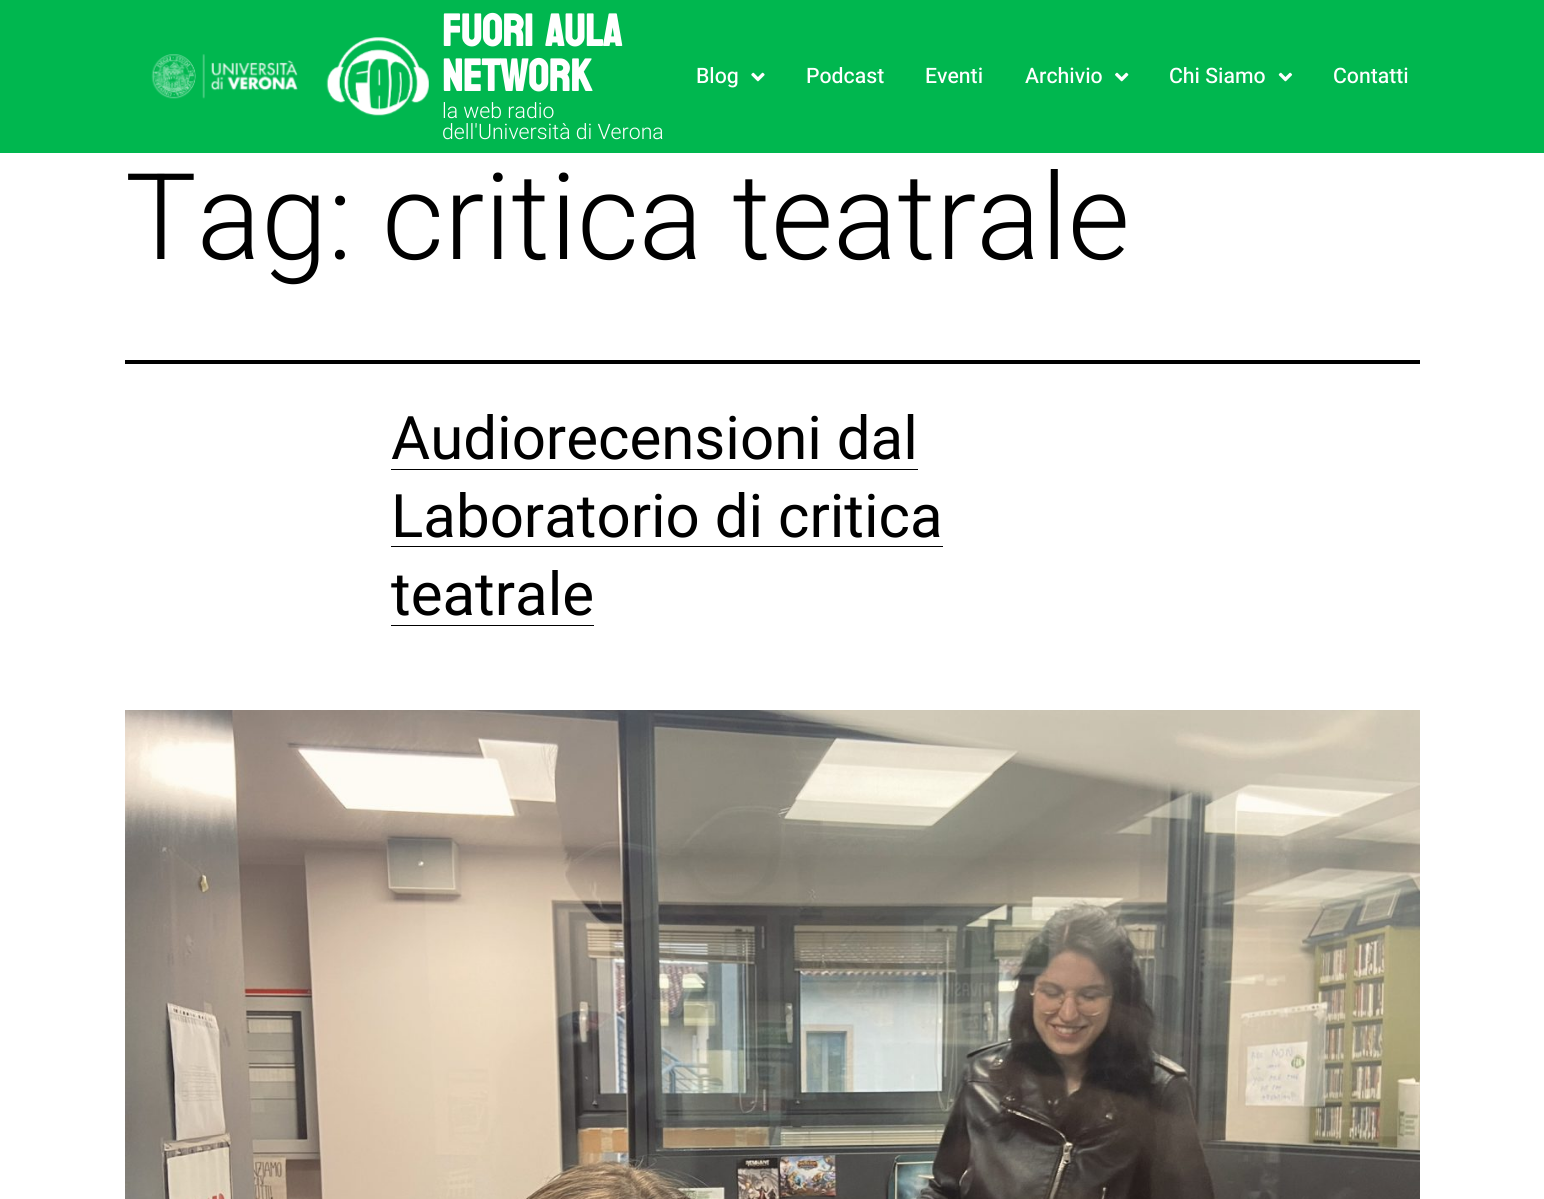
import math
import cairo

surface = cairo.ImageSurface(cairo.Format.RGB24, 1544, 1199)
ctx = cairo.Context(surface)
options = cairo.FontOptions()
options.set_hint_metrics(cairo.HintMetrics.OFF)
options.set_hint_style(cairo.HintStyle.NONE)
ctx.set_font_options(options)
ctx.set_miter_limit(4)


def ink(r, g, b):
    ctx.set_source_rgb(r / 255, g / 255, b / 255)


def write(x, y, s, family, size, color, bold=False, italic=False):
    ctx.select_font_face(family, cairo.FontSlant.ITALIC if italic else cairo.FontSlant.NORMAL, cairo.FontWeight.BOLD if bold else cairo.FontWeight.NORMAL)
    ctx.set_font_size(size)
    ink(*color)
    ctx.move_to(x, y)
    ctx.show_text(s)


def block(x, y, w, h, *color):
    ink(*color)
    ctx.rectangle(x, y, w, h)
    ctx.fill()


def paste(path, x, y, w, h):
    ctx.save()
    ctx.set_source_surface(cairo.ImageSurface.create_from_png(path), x, y)
    ctx.rectangle(x, y, w, h)
    ctx.fill()
    ctx.restore()


s1 = dict(family="Koulen", size=45, color=(255, 255, 255), bold=True)
s2 = dict(family="Roboto Light", size=21.25, color=(255, 255, 255))
s3 = dict(family="Heebo Medium", size=21.25, color=(255, 255, 255))
s4 = dict(family="Roboto Light", size=120, color=(0, 0, 0))
s5 = dict(family="Roboto", size=60, color=(0, 0, 0))

ink(255, 255, 255)
ctx.paint()
block(0, 0, 1544, 153, 0, 183, 79)
paste("pic1.png", 151, 54, 147, 45)
paste("pic2.png", 326, 37, 103, 79)
write(442, 46, "Fuori Aula", **s1)
write(442, 91, "Network", **s1)
write(442, 118, "la web radio", **s2)
write(442, 139, "dell'Università di Verona", **s2)
write(696, 83, "Blog", **s3)
paste("pic3.png", 751, 72, 14, 10)
write(806, 83, "Podcast", **s3)
write(925, 83, "Eventi", **s3)
write(1025, 83, "Archivio", **s3)
paste("pic4.png", 1115, 72, 14, 10)
write(1169, 83, "Chi Siamo", **s3)
paste("pic5.png", 1278, 72, 15, 10)
write(1333, 83, "Contatti", **s3)
block(125, 360, 1295, 4, 0, 0, 0)
write(125, 259, "Tag: critica teatrale", **s4)
write(391, 459, "Audiorecensioni dal", **s5)
block(391, 469, 527, 1, 0, 0, 0)
write(391, 537, "Laboratorio di critica", **s5)
block(391, 546, 552, 1, 0, 0, 0)
write(391, 615, "teatrale", **s5)
block(391, 625, 203, 1, 0, 0, 0)
paste("pic6.png", 125, 710, 1295, 489)
surface.write_to_png("screenshot.png")
